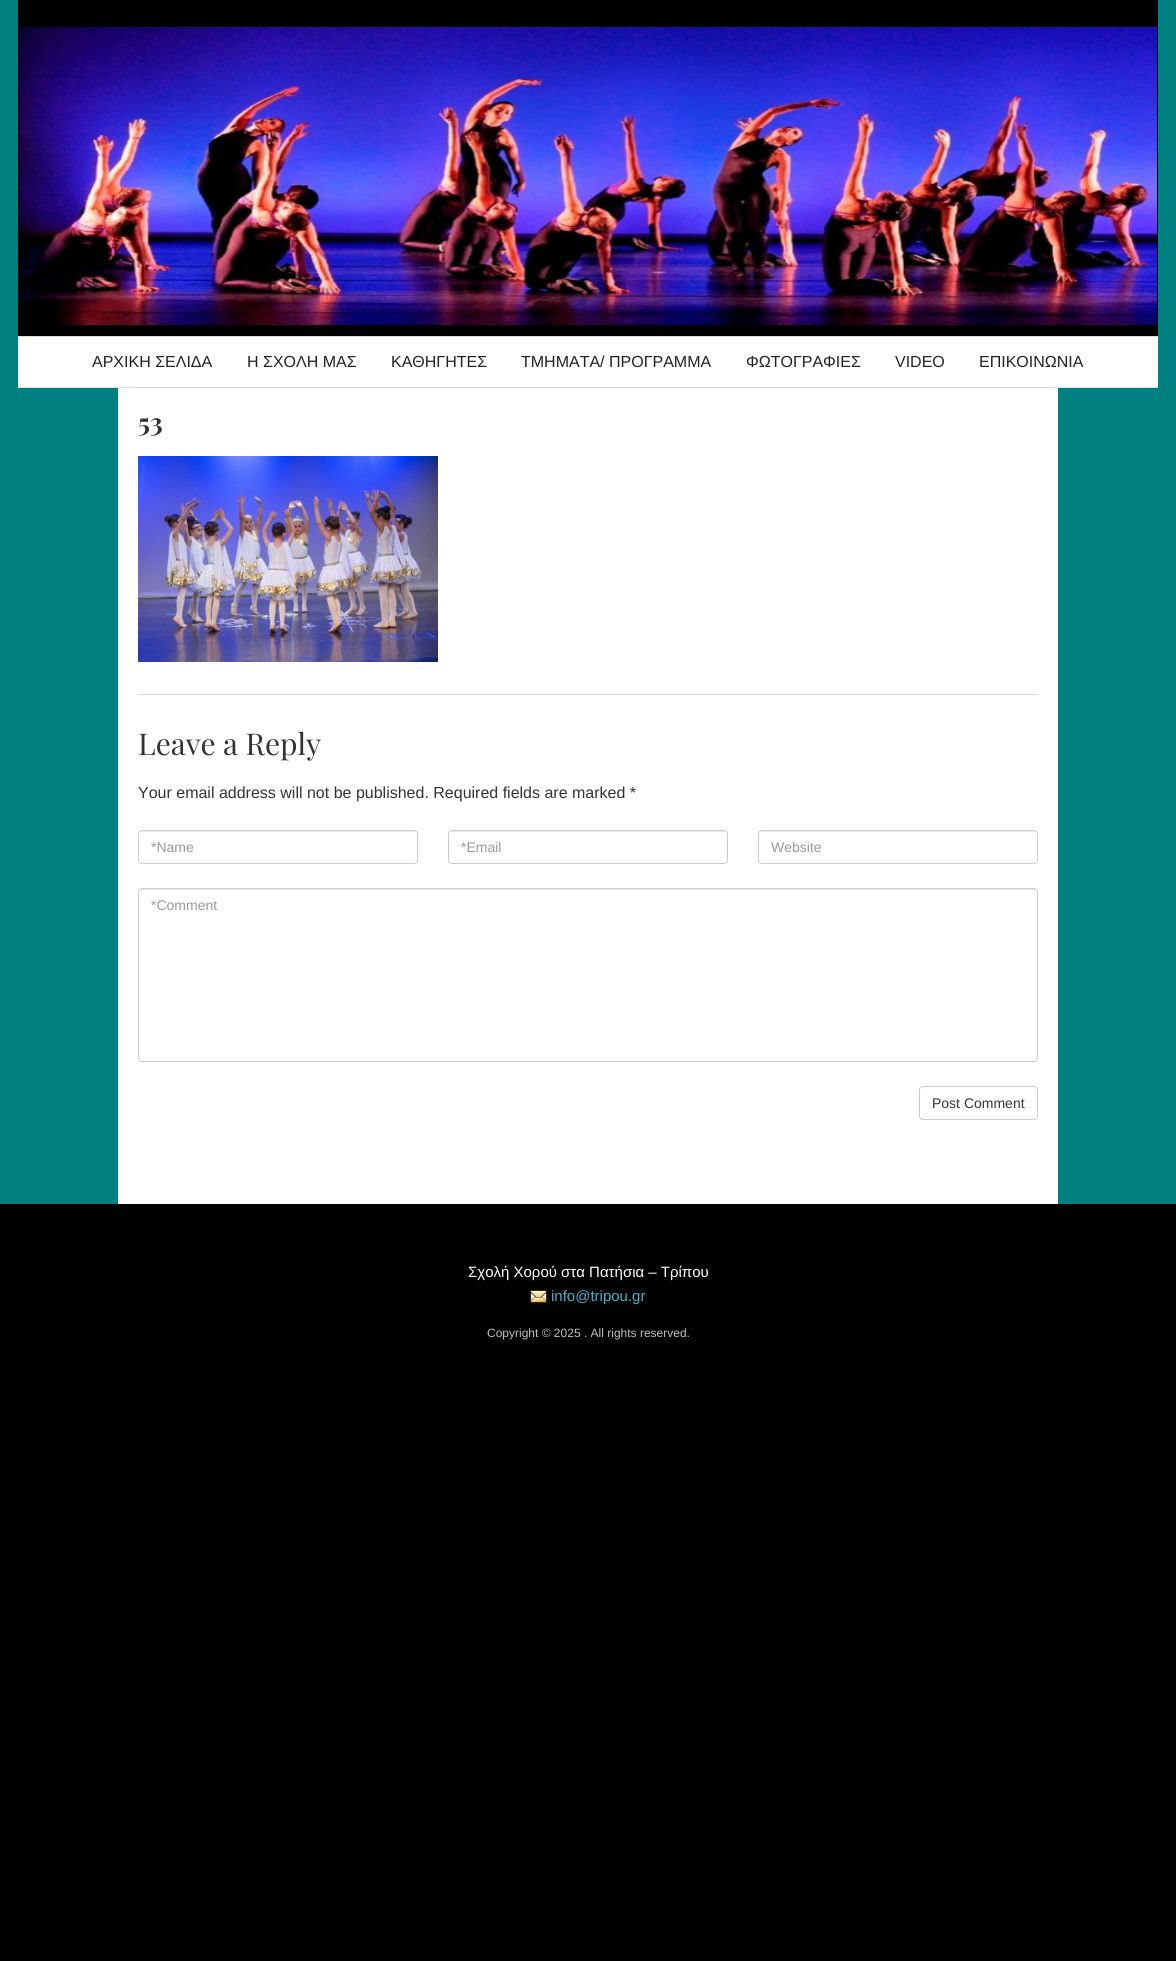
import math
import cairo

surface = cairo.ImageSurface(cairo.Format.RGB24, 1176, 1961)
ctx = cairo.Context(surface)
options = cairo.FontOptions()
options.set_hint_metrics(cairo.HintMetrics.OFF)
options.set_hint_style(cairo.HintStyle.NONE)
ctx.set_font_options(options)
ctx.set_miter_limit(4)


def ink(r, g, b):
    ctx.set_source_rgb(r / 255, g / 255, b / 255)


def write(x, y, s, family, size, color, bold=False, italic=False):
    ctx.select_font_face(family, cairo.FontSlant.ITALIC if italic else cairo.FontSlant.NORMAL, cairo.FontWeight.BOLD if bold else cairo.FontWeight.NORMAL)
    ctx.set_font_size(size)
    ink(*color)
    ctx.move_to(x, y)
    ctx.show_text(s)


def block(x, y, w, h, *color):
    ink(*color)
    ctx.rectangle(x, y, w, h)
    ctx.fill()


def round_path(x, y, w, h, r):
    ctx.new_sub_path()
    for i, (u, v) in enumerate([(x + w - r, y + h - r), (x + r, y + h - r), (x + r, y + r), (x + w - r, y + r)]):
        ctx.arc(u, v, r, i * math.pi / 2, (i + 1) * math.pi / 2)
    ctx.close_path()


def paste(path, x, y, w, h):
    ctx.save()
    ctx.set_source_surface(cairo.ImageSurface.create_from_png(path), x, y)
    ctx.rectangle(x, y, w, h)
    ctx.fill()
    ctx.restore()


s1 = dict(family="Liberation Sans", size=16, color=(34, 34, 34))
s2 = dict(family="Playfair Display", size=26, color=(51, 51, 51), bold=True)
s3 = dict(family="Playfair Display", size=30, color=(51, 51, 51))
s4 = dict(family="Liberation Sans", size=16, color=(51, 51, 51))
s5 = dict(family="Liberation Sans", size=14, color=(153, 153, 153))
s6 = dict(family="Liberation Sans", size=14, color=(51, 51, 51))
s7 = dict(family="Liberation Sans", size=15, color=(255, 255, 255))
s8 = dict(family="Liberation Sans", size=15, color=(64, 179, 204))
s9 = dict(family="Liberation Sans", size=12, color=(193, 193, 193))

ink(0, 0, 0)
ctx.paint()
block(0, 0, 1176, 1204, 0, 128, 128)
block(18, 337, 1140, 50, 255, 255, 255)
block(18, 0, 1140, 336, 0, 0, 0)
paste("pic1.png", 19, 27, 1138, 298)
block(18, 336, 1140, 1, 222, 222, 222)
block(18, 387, 1140, 1, 222, 222, 222)
write(92, 367, "ΑΡΧΙΚΗ ΣΕΛΙΔΑ", **s1)
write(247, 367, "H ΣΧΟΛΗ ΜΑΣ", **s1)
write(391, 367, "ΚΑΘΗΓΗΤΕΣ", **s1)
write(521, 367, "ΤΜΗΜΑΤΑ/ ΠΡΟΓΡΑΜΜΑ", **s1)
write(746, 367, "ΦΩΤΟΓΡΑΦΙΕΣ", **s1)
write(895, 367, "VIDEO", **s1)
write(979, 367, "ΕΠΙΚΟΙΝΩΝΙΑ", **s1)
block(118, 388, 940, 816, 255, 255, 255)
write(138, 432, "53", **s2)
paste("pic2.png", 138, 456, 300, 206)
block(138, 694, 900, 1, 222, 222, 222)
write(138, 755, "Leave a Reply", **s3)
write(138, 798, "Your email address will not be published. Required fields are marked *", **s4)
ink(236, 236, 236)
ctx.new_path()
ctx.move_to(142, 832)
ctx.line_to(414, 832)
ctx.curve_to(416, 832, 417, 833, 417, 835)
ctx.line_to(417, 834)
ctx.curve_to(417, 832, 416, 831, 414, 831)
ctx.line_to(142, 831)
ctx.curve_to(140, 831, 139, 832, 139, 834)
ctx.line_to(139, 835)
ctx.curve_to(139, 833, 140, 832, 142, 832)
ctx.close_path()
ctx.fill()
round_path(138.5, 830.5, 279, 33, 3.5)
ink(204, 204, 204)
ctx.set_line_width(1)
ctx.stroke()
write(151, 852, "*Name", **s5)
ink(236, 236, 236)
ctx.new_path()
ctx.move_to(452, 832)
ctx.line_to(724, 832)
ctx.curve_to(726, 832, 727, 833, 727, 835)
ctx.line_to(727, 834)
ctx.curve_to(727, 832, 726, 831, 724, 831)
ctx.line_to(452, 831)
ctx.curve_to(450, 831, 449, 832, 449, 834)
ctx.line_to(449, 835)
ctx.curve_to(449, 833, 450, 832, 452, 832)
ctx.close_path()
ctx.fill()
round_path(448.5, 830.5, 279, 33, 3.5)
ink(204, 204, 204)
ctx.stroke()
write(461, 852, "*Email", **s5)
ink(236, 236, 236)
ctx.new_path()
ctx.move_to(762, 832)
ctx.line_to(1034, 832)
ctx.curve_to(1036, 832, 1037, 833, 1037, 835)
ctx.line_to(1037, 834)
ctx.curve_to(1037, 832, 1036, 831, 1034, 831)
ctx.line_to(762, 831)
ctx.curve_to(760, 831, 759, 832, 759, 834)
ctx.line_to(759, 835)
ctx.curve_to(759, 833, 760, 832, 762, 832)
ctx.close_path()
ctx.fill()
round_path(758.5, 830.5, 279, 33, 3.5)
ink(204, 204, 204)
ctx.stroke()
write(771, 852, "Website", **s5)
ink(236, 236, 236)
ctx.new_path()
ctx.move_to(142, 890)
ctx.line_to(1034, 890)
ctx.curve_to(1036, 890, 1037, 891, 1037, 893)
ctx.curve_to(1037, 891, 1036, 889, 1034, 889)
ctx.line_to(142, 889)
ctx.curve_to(140, 889, 139, 891, 139, 893)
ctx.curve_to(139, 891, 140, 890, 142, 890)
ctx.close_path()
ctx.fill()
round_path(138.5, 888.5, 899, 173, 3.5)
ink(204, 204, 204)
ctx.stroke()
write(151, 910, "*Comment", **s5)
round_path(919.5, 1086.5, 118, 33, 3.5)
ink(204, 204, 204)
ctx.stroke()
write(932, 1108, "Post Comment", **s6)
write(468, 1277, "Σχολή Χορού στα Πατήσια – Τρίπου", **s7)
paste("pic3.png", 530, 1290, 17, 13)
write(551, 1301, "info@tripou.gr", **s8)
write(487, 1337, "Copyright © 2025 . All rights reserved.", **s9)
surface.write_to_png("screenshot.png")
